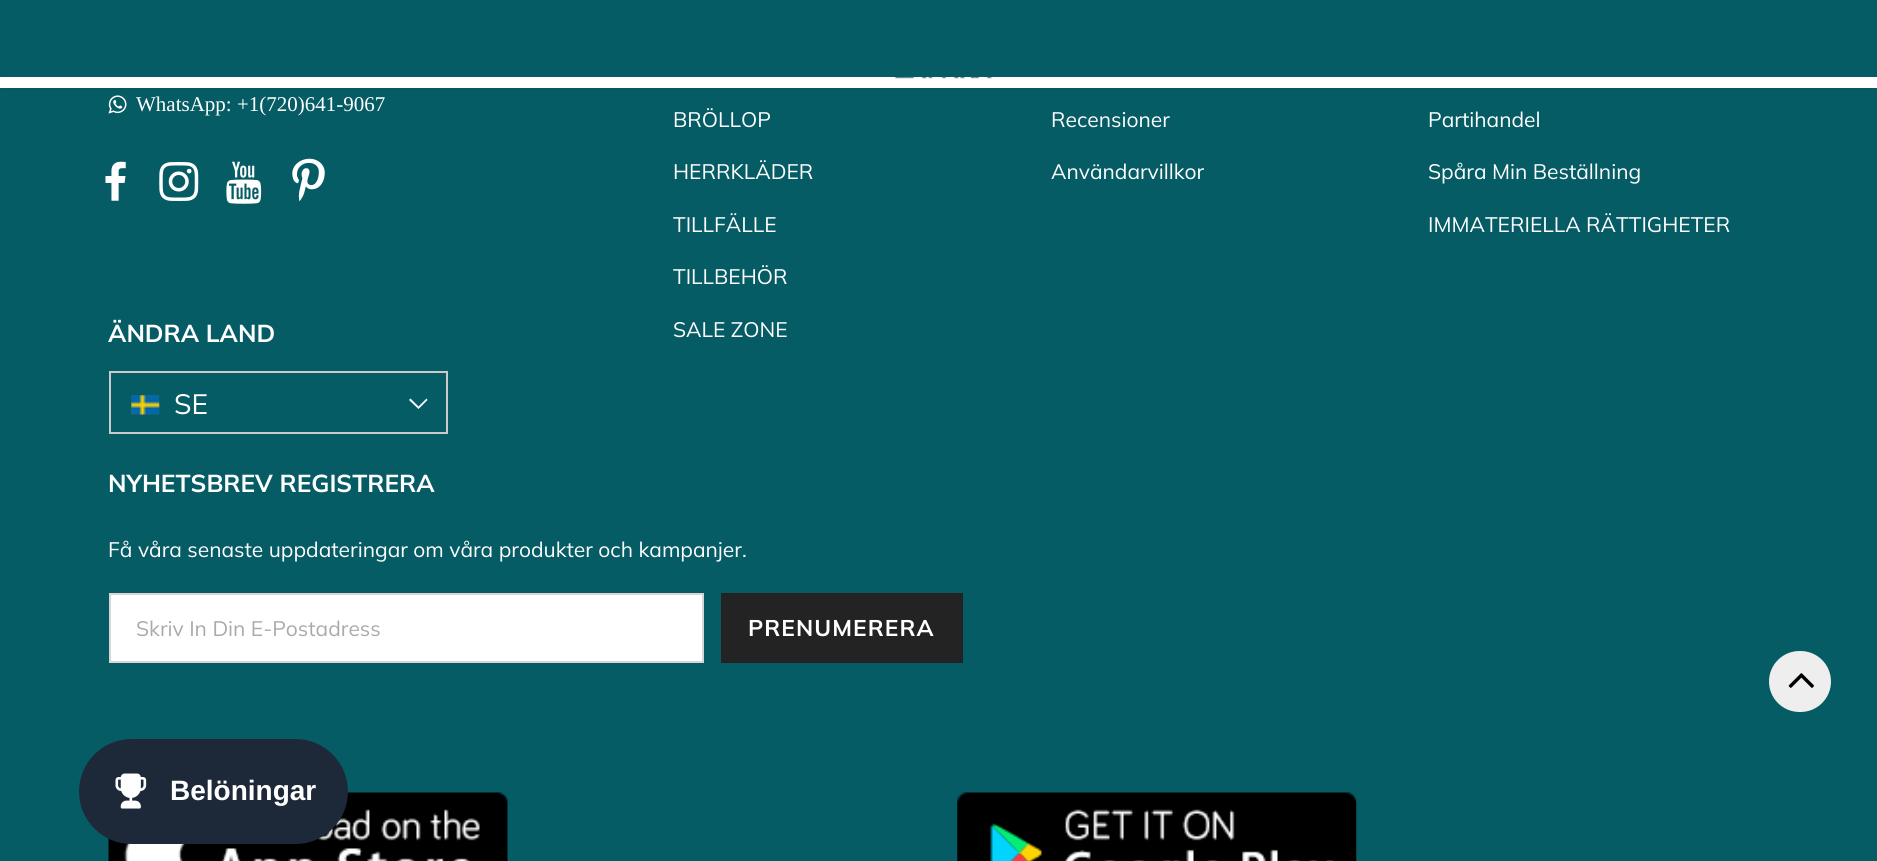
import math
import cairo

surface = cairo.ImageSurface(cairo.Format.RGB24, 1877, 861)
ctx = cairo.Context(surface)
options = cairo.FontOptions()
options.set_hint_metrics(cairo.HintMetrics.OFF)
options.set_hint_style(cairo.HintStyle.NONE)
ctx.set_font_options(options)
ctx.set_miter_limit(4)


def ink(r, g, b):
    ctx.set_source_rgb(r / 255, g / 255, b / 255)


def write(x, y, s, family, size, color, bold=False, italic=False):
    ctx.select_font_face(family, cairo.FontSlant.ITALIC if italic else cairo.FontSlant.NORMAL, cairo.FontWeight.BOLD if bold else cairo.FontWeight.NORMAL)
    ctx.set_font_size(size)
    ink(*color)
    ctx.move_to(x, y)
    ctx.show_text(s)


def write_spaced(x, y, s, letter, word):
    ctx.move_to(x, y)
    for ch in s:
        ctx.show_text(ch)
        ctx.rel_move_to(letter + word * (ch == ' '), 0)


def block(x, y, w, h, *color):
    ink(*color)
    ctx.rectangle(x, y, w, h)
    ctx.fill()


def round_path(x, y, w, h, r):
    ctx.new_sub_path()
    for i, (u, v) in enumerate([(x + w - r, y + h - r), (x + r, y + h - r), (x + r, y + r), (x + w - r, y + r)]):
        ctx.arc(u, v, r, i * math.pi / 2, (i + 1) * math.pi / 2)
    ctx.close_path()


def blur_box(x, y, w, h, r, blur, alpha):
    ctx.push_group_with_content(cairo.Content.ALPHA)
    ctx.set_operator(cairo.Operator.SOURCE)
    for i in range(15, -16, -2):
        e = blur * i / 6
        if min(w, h) + 2 * e > 0:
            ctx.set_source_rgba(0, 0, 0, alpha * math.erfc((i - 1) / 8.5) / 2)
            round_path(x - e, y - e, w + 2 * e, h + 2 * e, max(0, min(r + e + blur * .6, min(w, h) / 2 + e)))
            ctx.fill()
    ctx.mask(ctx.pop_group())


def paste(path, x, y, w, h):
    ctx.save()
    ctx.set_source_surface(cairo.ImageSurface.create_from_png(path), x, y)
    ctx.rectangle(x, y, w, h)
    ctx.fill()
    ctx.restore()


s1 = dict(family="Liberation Serif", size=21, color=(255, 255, 255))
s2 = dict(family="Muli", size=24.5, color=(255, 255, 255), bold=True)
s3 = dict(family="Muli", size=28, color=(255, 255, 255))
s4 = dict(family="Muli", size=21, color=(255, 255, 255))
s5 = dict(family="Muli", size=21, color=(170, 170, 170))
s6 = dict(family="Liberation Sans", size=28, color=(255, 255, 255), bold=True)

ink(6, 92, 101)
ctx.paint()
paste("pic2.png", 108, 95, 19, 19)
ink(0, 0, 0)
blur_box(5, 11, 1868, 77, 0, 2.5, 0.12)
block(0, 77, 1877, 11, 255, 255, 255)
paste("pic1.png", 895, 77, 97, 2)
block(3, 9, 1872, 68, 6, 92, 101)
write(136, 111, "WhatsApp: +1(720)641-9067", **s1)
paste("pic3.png", 105, 161, 21, 40)
paste("pic4.png", 159, 162, 40, 39)
paste("pic5.png", 226, 161, 36, 43)
paste("pic6.png", 292, 158, 33, 43)
write(108, 342, "ÄNDRA LAND", **s2)
block(109, 371, 339, 2, 203, 203, 203)
block(109, 432, 50, 2, 203, 203, 203)
block(109, 371, 2, 63, 203, 203, 203)
paste("pic7.png", 131, 395, 29, 20)
ink(255, 255, 255)
ctx.new_path()
ctx.move_to(418.5, 409)
ctx.line_to(409, 400)
ctx.line_to(410.5, 398.5)
ctx.line_to(418.5, 406.5)
ctx.line_to(426.5, 398.5)
ctx.line_to(427.5, 400)
ctx.close_path()
ctx.fill()
block(446, 371, 2, 63, 203, 203, 203)
block(154, 432, 294, 2, 203, 203, 203)
write(174, 414, "SE", **s3)
write(673, 127, "BRÖLLOP", **s4)
write(673, 179, "HERRKLÄDER", **s4)
write(673, 232, "TILLFÄLLE", **s4)
write(673, 284, "TILLBEHÖR", **s4)
write(673, 337, "SALE ZONE", **s4)
write(1051, 127, "Recensioner", **s4)
write(1051, 179, "Användarvillkor", **s4)
write(1428, 127, "Partihandel", **s4)
write(1428, 179, "Spåra Min Beställning", **s4)
write(1428, 232, "IMMATERIELLA RÄTTIGHETER", **s4)
write(108, 492, "NYHETSBREV REGISTRERA", **s2)
write(108, 557, "Få våra senaste uppdateringar om våra produkter och kampanjer.", **s4)
ctx.rectangle(110, 594, 593, 68)
ctx.fill_preserve()
ink(215, 215, 215)
ctx.stroke()
write(136, 636, "Skriv In Din E-Postadress", **s5)
block(721, 593, 242, 70, 35, 35, 35)
ctx.select_font_face("Muli", cairo.FontSlant.NORMAL, cairo.FontWeight.BOLD)
ctx.set_font_size(22.75)
ink(255, 255, 255)
write_spaced(748, 636, "PRENUMERERA", 1.1, 0)
paste("pic8.png", 108, 792, 400, 69)
paste("pic9.png", 957, 792, 400, 69)
ink(238, 238, 238)
round_path(1769, 651, 62, 61, 30.5)
ctx.fill()
paste("pic10.png", 1788, 673, 26, 15)
ink(29, 41, 57)
round_path(79, 739, 269, 105, 52.5)
ctx.fill()
paste("pic11.png", 115, 773, 32, 36)
write(170, 800, "Belöningar", **s6)
surface.write_to_png("screenshot.png")
